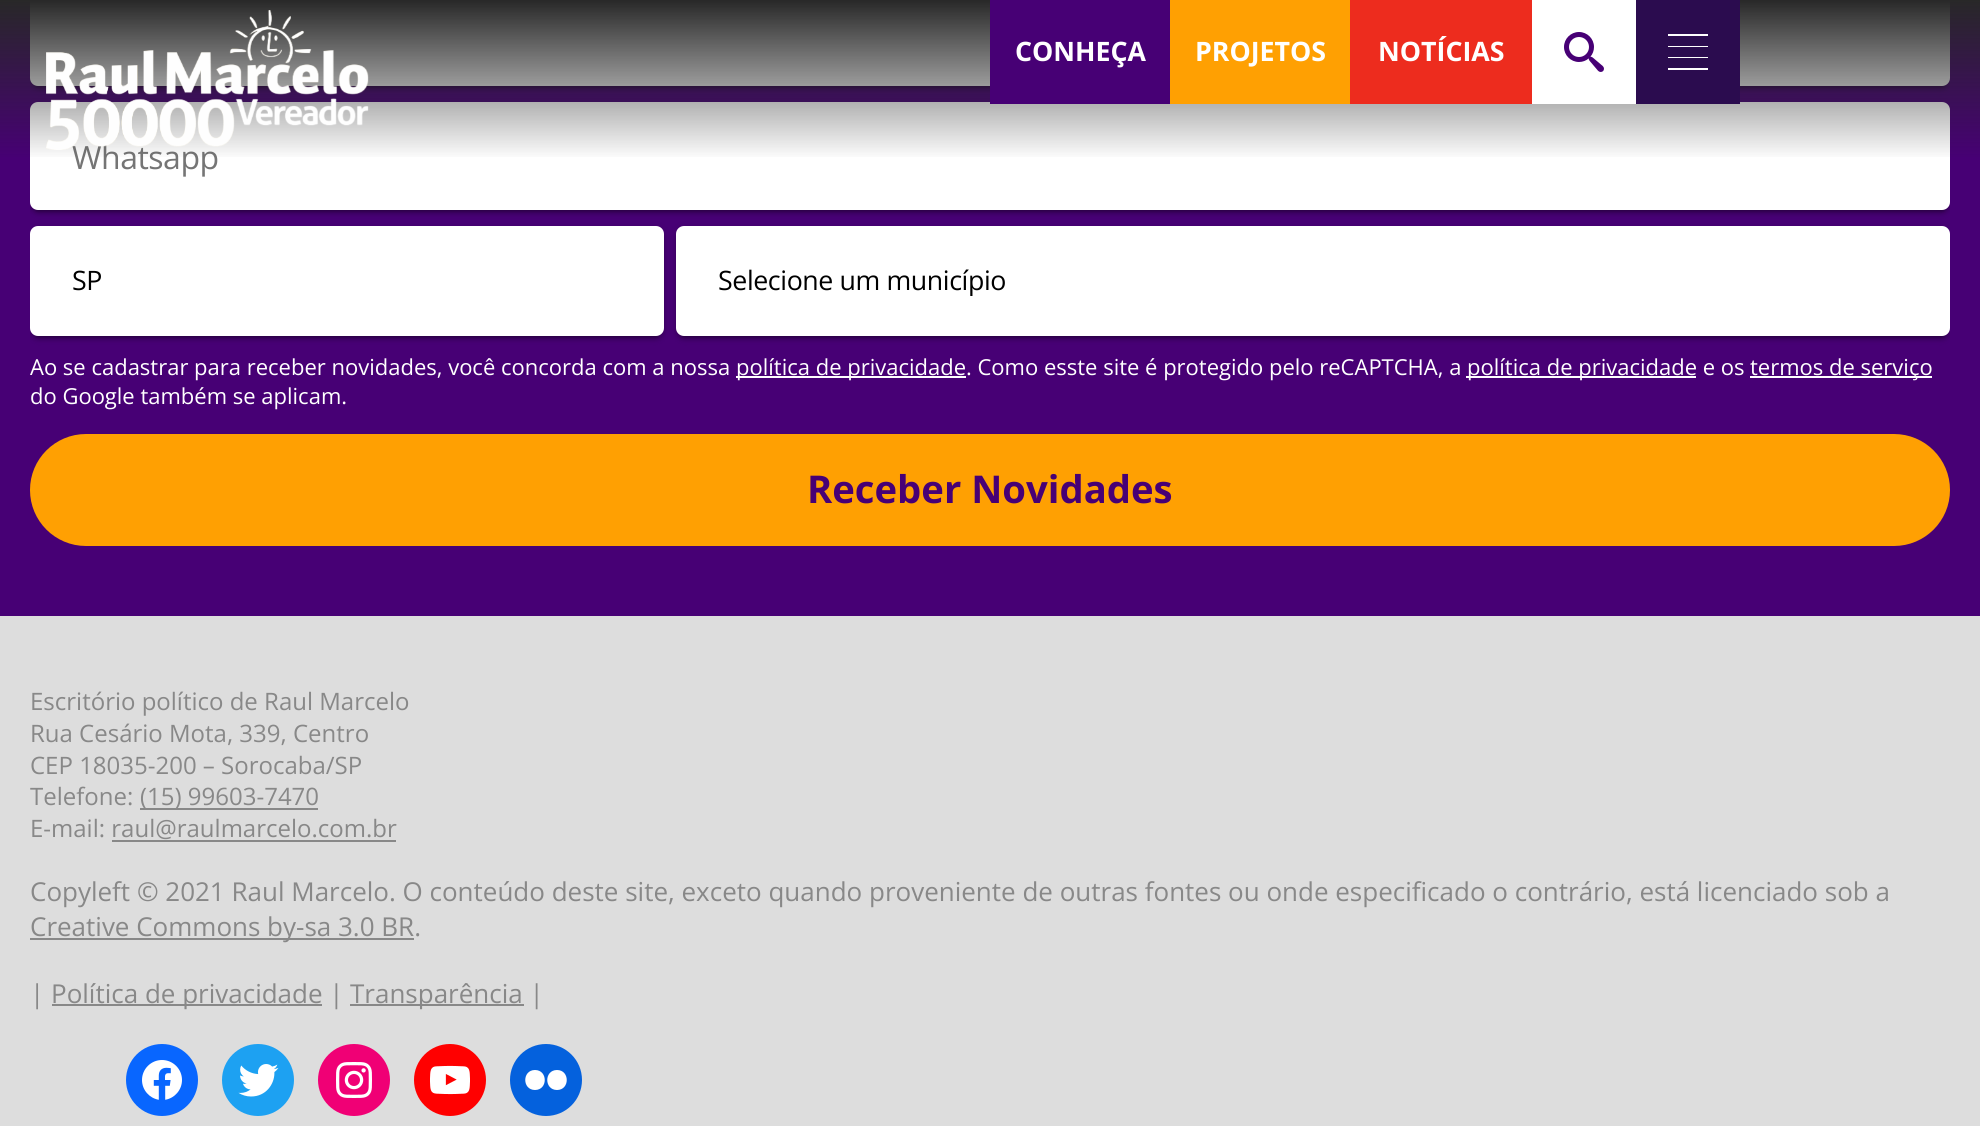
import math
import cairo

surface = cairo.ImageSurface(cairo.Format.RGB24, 1980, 1126)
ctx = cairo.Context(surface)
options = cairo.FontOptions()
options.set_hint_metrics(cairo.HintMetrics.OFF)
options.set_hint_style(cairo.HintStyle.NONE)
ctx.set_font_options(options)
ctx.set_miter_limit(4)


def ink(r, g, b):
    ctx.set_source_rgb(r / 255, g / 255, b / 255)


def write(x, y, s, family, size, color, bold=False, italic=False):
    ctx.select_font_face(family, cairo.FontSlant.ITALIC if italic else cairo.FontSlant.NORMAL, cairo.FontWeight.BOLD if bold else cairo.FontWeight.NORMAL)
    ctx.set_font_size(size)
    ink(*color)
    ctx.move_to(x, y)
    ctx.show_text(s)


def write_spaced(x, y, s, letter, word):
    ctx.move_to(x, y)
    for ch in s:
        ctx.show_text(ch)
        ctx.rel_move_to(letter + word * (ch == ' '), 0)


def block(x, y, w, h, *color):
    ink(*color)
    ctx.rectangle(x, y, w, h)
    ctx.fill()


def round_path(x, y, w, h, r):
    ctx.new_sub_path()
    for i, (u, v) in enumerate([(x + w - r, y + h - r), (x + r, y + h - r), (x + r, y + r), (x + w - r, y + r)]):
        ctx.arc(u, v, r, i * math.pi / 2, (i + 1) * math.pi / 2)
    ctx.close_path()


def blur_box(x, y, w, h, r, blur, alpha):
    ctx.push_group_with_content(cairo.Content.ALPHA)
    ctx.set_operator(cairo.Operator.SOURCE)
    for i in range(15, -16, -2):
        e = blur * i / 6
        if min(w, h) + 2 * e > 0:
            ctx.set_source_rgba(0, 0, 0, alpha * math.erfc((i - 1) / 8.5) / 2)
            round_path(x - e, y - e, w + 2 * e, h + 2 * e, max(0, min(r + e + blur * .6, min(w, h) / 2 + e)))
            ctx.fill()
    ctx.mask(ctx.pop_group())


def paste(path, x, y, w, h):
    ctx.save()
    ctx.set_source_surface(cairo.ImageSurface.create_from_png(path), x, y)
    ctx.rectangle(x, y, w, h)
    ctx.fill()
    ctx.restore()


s1 = dict(family="Open Sans", size=26.75, color=(255, 255, 255), bold=True)
s2 = dict(family="Open Sans", size=22, color=(255, 255, 255))
s3 = dict(family="Open Sans", size=38.25, color=(71, 0, 117), bold=True)
s4 = dict(family="Open Sans", size=24, color=(136, 136, 136))
s5 = dict(family="Open Sans", size=26, color=(136, 136, 136))

ink(71, 0, 117)
ctx.paint()
ctx.save()
ctx.rectangle(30, 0, 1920, 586)
ctx.clip()
ink(0, 0, 0)
blur_box(30, -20, 1920, 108, 8, 5, 0.12)
blur_box(30, -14, 1920, 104, 8, 2, 0.14)
ctx.restore()
ink(0, 0, 0)
blur_box(34, -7, 1912, 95, 4, 1, 0.2)
ink(255, 255, 255)
round_path(30, -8, 1920, 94, 8)
ctx.fill()
ctx.save()
ctx.rectangle(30, 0, 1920, 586)
ctx.clip()
ink(0, 0, 0)
blur_box(30, 104, 1920, 108, 8, 5, 0.12)
blur_box(30, 106, 1920, 108, 8, 2, 0.14)
ctx.restore()
ink(0, 0, 0)
blur_box(34, 112, 1912, 100, 4, 1, 0.2)
ink(255, 255, 255)
round_path(30, 102, 1920, 108, 8)
ctx.fill()
ctx.select_font_face("Open Sans")
ctx.set_font_size(32)
ink(117, 117, 117)
write_spaced(72, 169, "Whatsapp", -0.5, 0)
gradient = cairo.LinearGradient(990, 0, 990, 160)
gradient.add_color_stop_rgba(0, 0.157, 0.157, 0.157, 1)
gradient.add_color_stop_rgba(1, 0.157, 0.157, 0.157, 0)
ctx.set_source(gradient)
ctx.rectangle(0, 0, 1980, 157)
ctx.fill()
paste("pic1.png", 46, 10, 323, 140)
block(990, 0, 180, 104, 71, 0, 117)
write(1015, 61, "CONHEÇA", **s1)
block(1170, 0, 180, 104, 255, 160, 2)
write(1195, 61, "PROJETOS", **s1)
block(1350, 0, 182, 104, 237, 44, 30)
write(1378, 61, "NOTÍCIAS", **s1)
block(1532, 0, 104, 104, 255, 255, 255)
paste("pic2.png", 1564, 32, 40, 40)
block(1636, 0, 104, 104, 43, 12, 79)
block(1668, 34, 40, 2, 255, 255, 255)
block(1668, 46, 40, 1, 255, 255, 255)
block(1668, 57, 40, 1, 255, 255, 255)
block(1668, 68, 40, 2, 255, 255, 255)
ctx.save()
ctx.rectangle(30, 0, 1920, 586)
ctx.clip()
ink(0, 0, 0)
blur_box(30, 228, 634, 110, 8, 5, 0.12)
blur_box(30, 230, 634, 110, 8, 2, 0.14)
ctx.restore()
ink(0, 0, 0)
blur_box(34, 236, 626, 102, 4, 1, 0.2)
ink(255, 255, 255)
round_path(30, 226, 634, 110, 8)
ctx.fill()
ctx.select_font_face("Open Sans")
ink(0, 0, 0)
write_spaced(72, 290, "SP", -0.4, 0)
ctx.save()
ctx.rectangle(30, 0, 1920, 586)
ctx.clip()
ink(0, 0, 0)
blur_box(676, 228, 1274, 110, 8, 5, 0.12)
blur_box(676, 230, 1274, 110, 8, 2, 0.14)
ctx.restore()
ink(0, 0, 0)
blur_box(680, 236, 1266, 102, 4, 1, 0.2)
ink(255, 255, 255)
round_path(676, 226, 1274, 110, 8)
ctx.fill()
ctx.save()
ctx.rectangle(718, 268, 1190, 28)
ctx.clip()
ink(0, 0, 0)
write_spaced(718, 290, "Selecione um município", -0.4, 0)
ctx.restore()
write(30, 375, "Ao se cadastrar para receber novidades, você concorda com a nossa", **s2)
block(736, 376, 230, 2, 255, 255, 255)
write(736, 375, "política de privacidade. Como esste site é protegido pelo reCAPTCHA, a", **s2)
block(1466, 376, 230, 2, 255, 255, 255)
write(1467, 375, "política de privacidade e os", **s2)
block(1750, 376, 182, 2, 255, 255, 255)
write(1750, 375, "termos de serviço", **s2)
write(30, 404, "do Google também se aplicam.", **s2)
ink(255, 160, 2)
round_path(30, 434, 1920, 112, 56)
ctx.fill()
write(807, 503, "Receber Novidades", **s3)
block(0, 616, 1980, 510, 221, 221, 221)
write(30, 710, "Escritório político de Raul Marcelo", **s4)
write(30, 742, "Rua Cesário Mota, 339, Centro", **s4)
write(30, 774, "CEP 18035-200 – Sorocaba/SP", **s4)
write(30, 805, "Telefone:", **s4)
block(140, 808, 178, 2, 136, 136, 136)
write(140, 805, "(15) 99603-7470", **s4)
write(30, 837, "E-mail: raul@raulmarcelo.com.br", **s4)
block(112, 840, 284, 2, 136, 136, 136)
write(30, 901, "Copyleft © 2021 Raul Marcelo. O conteúdo deste site, exceto quando proveniente de outras fontes ou onde especificado o contrário, está licenciado sob a", **s5)
block(30, 938, 384, 2, 136, 136, 136)
write(30, 936, "Creative Commons by-sa 3.0 BR.", **s5)
write(30, 1003, "|", **s5)
block(52, 1004, 270, 2, 136, 136, 136)
write(51, 1003, "Política de privacidade |", **s5)
block(350, 1004, 174, 2, 136, 136, 136)
write(350, 1003, "Transparência |", **s5)
ink(8, 102, 255)
ctx.new_path()
ctx.arc(162, 1080, 36, 0, 2 * math.pi)
ctx.fill()
paste("pic3.png", 142, 1060, 40, 40)
ink(29, 161, 242)
ctx.arc(258, 1080, 36, 0, 2 * math.pi)
ctx.fill()
paste("pic4.png", 238, 1064, 41, 33)
ink(240, 0, 117)
ctx.arc(354, 1080, 36, 0, 2 * math.pi)
ctx.fill()
paste("pic5.png", 336, 1062, 36, 36)
ink(255, 0, 0)
ctx.arc(450, 1080, 36, 0, 2 * math.pi)
ctx.fill()
paste("pic6.png", 430, 1065, 40, 30)
ink(4, 97, 221)
ctx.arc(546, 1080, 36, 0, 2 * math.pi)
ctx.fill()
ink(255, 255, 255)
ctx.new_path()
ctx.move_to(535, 1070)
ctx.curve_to(522, 1070, 522, 1090, 535, 1090)
ctx.curve_to(548, 1090, 548, 1070, 535, 1070)
ctx.close_path()
ctx.move_to(557, 1070)
ctx.curve_to(544, 1070, 544, 1090, 557, 1090)
ctx.curve_to(570, 1090, 570, 1070, 557, 1070)
ctx.close_path()
ctx.fill()
surface.write_to_png("screenshot.png")
